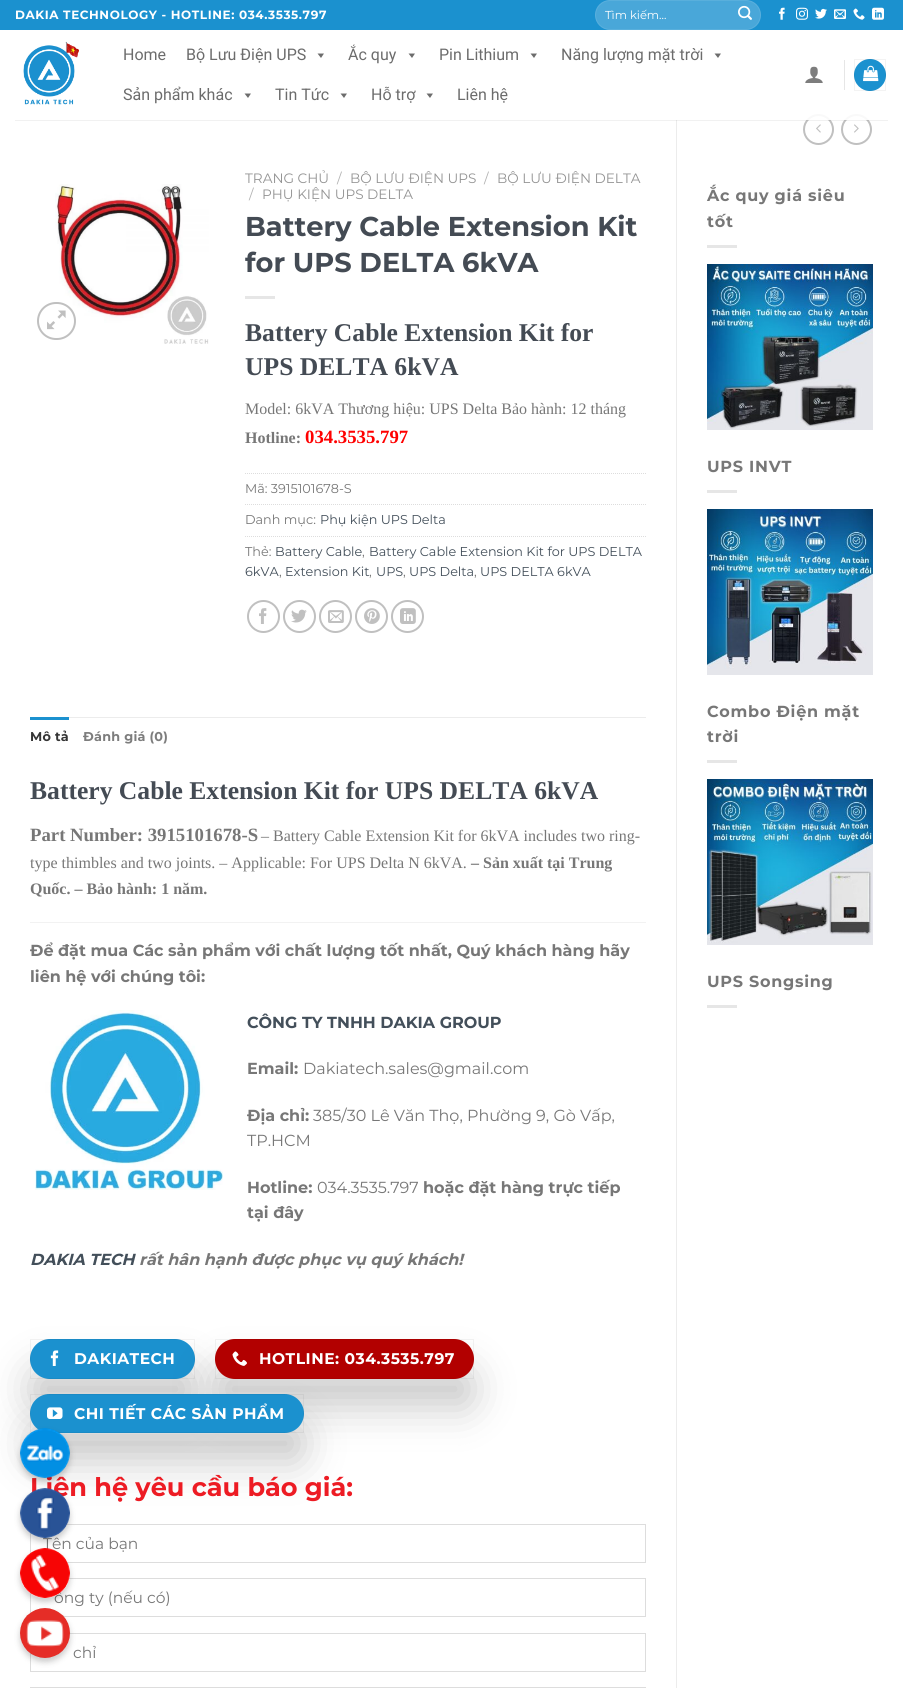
import math
import cairo

surface = cairo.ImageSurface(cairo.Format.RGB24, 903, 1688)
ctx = cairo.Context(surface)
options = cairo.FontOptions()
options.set_hint_metrics(cairo.HintMetrics.OFF)
options.set_hint_style(cairo.HintStyle.NONE)
ctx.set_font_options(options)
ctx.set_miter_limit(4)


def ink(r, g, b):
    ctx.set_source_rgb(r / 255, g / 255, b / 255)


def write(x, y, s, family, size, color, bold=False, italic=False):
    ctx.select_font_face(family, cairo.FontSlant.ITALIC if italic else cairo.FontSlant.NORMAL, cairo.FontWeight.BOLD if bold else cairo.FontWeight.NORMAL)
    ctx.set_font_size(size)
    ink(*color)
    ctx.move_to(x, y)
    ctx.show_text(s)


def write_spaced(x, y, s, letter, word):
    ctx.move_to(x, y)
    for ch in s:
        ctx.show_text(ch)
        ctx.rel_move_to(letter + word * (ch == ' '), 0)


def block(x, y, w, h, *color):
    ink(*color)
    ctx.rectangle(x, y, w, h)
    ctx.fill()


def round_path(x, y, w, h, r):
    ctx.new_sub_path()
    for i, (u, v) in enumerate([(x + w - r, y + h - r), (x + r, y + h - r), (x + r, y + r), (x + w - r, y + r)]):
        ctx.arc(u, v, r, i * math.pi / 2, (i + 1) * math.pi / 2)
    ctx.close_path()


def blur_box(x, y, w, h, r, blur, alpha):
    ctx.push_group_with_content(cairo.Content.ALPHA)
    ctx.set_operator(cairo.Operator.SOURCE)
    for i in range(15, -16, -2):
        e = blur * i / 6
        if min(w, h) + 2 * e > 0:
            ctx.set_source_rgba(0, 0, 0, alpha * math.erfc((i - 1) / 8.5) / 2)
            round_path(x - e, y - e, w + 2 * e, h + 2 * e, max(0, min(r + e + blur * .6, min(w, h) / 2 + e)))
            ctx.fill()
    ctx.mask(ctx.pop_group())


def paste(path, x, y, w, h):
    ctx.save()
    ctx.set_source_surface(cairo.ImageSurface.create_from_png(path), x, y)
    ctx.rectangle(x, y, w, h)
    ctx.fill()
    ctx.restore()


s1 = dict(family="Montserrat", size=11.5, color=(255, 255, 255))
s2 = dict(family="Roboto", size=16, color=(108, 108, 108))
s3 = dict(family="Montserrat", size=13.6, color=(148, 148, 148))
s4 = dict(family="Montserrat", size=13.6, color=(178, 178, 178))
s5 = dict(family="Montserrat", size=27.25, color=(68, 75, 84), bold=True)
s6 = dict(family="Liberation Serif", size=25.6, color=(68, 75, 84), bold=True)
s7 = dict(family="Liberation Serif", size=16, color=(119, 119, 119))
s8 = dict(family="Liberation Serif", size=16, color=(119, 119, 119), bold=True)
s9 = dict(family="Liberation Serif", size=18.75, color=(255, 0, 0), bold=True)
s10 = dict(family="Montserrat", size=12.8, color=(119, 119, 119))
s11 = dict(family="Montserrat", size=12.8, color=(67, 79, 90))
s12 = dict(family="Liberation Serif", size=18.75, color=(119, 119, 119), bold=True)
s13 = dict(family="Montserrat", size=16, color=(119, 119, 119), bold=True)
s14 = dict(family="Montserrat", size=16, color=(67, 79, 90), bold=True)
s15 = dict(family="Montserrat", size=16, color=(119, 119, 119))
s16 = dict(family="Montserrat", size=16, color=(67, 79, 90), bold=True, italic=True)
s17 = dict(family="Montserrat", size=16, color=(119, 119, 119), bold=True, italic=True)
s18 = dict(family="Montserrat", size=25.6, color=(237, 28, 36), bold=True)
s19 = dict(family="Montserrat", size=15.5, color=(119, 119, 119))

ink(255, 255, 255)
ctx.paint()
block(0, 0, 903, 30, 27, 145, 207)
ctx.select_font_face("Montserrat", cairo.FontSlant.NORMAL, cairo.FontWeight.BOLD)
ctx.set_font_size(12)
ink(255, 255, 255)
write_spaced(15, 19, "DAKIA TECHNOLOGY - HOTLINE: 034.3535.797", 0.6, 0)
ink(73, 167, 217)
round_path(595, 0, 166, 30, 15)
ctx.fill()
round_path(595.5, 0.5, 165, 29, 14.5)
ctx.set_source_rgba(1, 1, 1, 0.09)
ctx.set_line_width(1)
ctx.stroke()
write(605, 19, "Tìm kiếm…", **s1)
paste("pic1.png", 738, 5, 14, 15)
paste("pic2.png", 779, 7, 6, 13)
paste("pic3.png", 796, 7, 12, 13)
paste("pic4.png", 815, 8, 12, 11)
paste("pic5.png", 834, 9, 12, 10)
paste("pic6.png", 853, 8, 12, 12)
paste("pic7.png", 872, 7, 12, 13)
paste("pic8.png", 23, 41, 56, 64)
write(123, 60, "Home", **s2)
write(186, 60, "Bộ Lưu Điện UPS", **s2)
ctx.new_path()
ctx.move_to(324, 53.5)
ctx.line_to(321, 58)
ctx.line_to(317.5, 53.5)
ctx.close_path()
ctx.fill()
write(348, 60, "Ắc quy", **s2)
ctx.new_path()
ctx.move_to(415, 53.5)
ctx.line_to(412, 58)
ctx.line_to(408.5, 53.5)
ctx.close_path()
ctx.fill()
write(439, 60, "Pin Lithium", **s2)
ctx.new_path()
ctx.move_to(537, 53.5)
ctx.line_to(534, 58)
ctx.line_to(530.5, 53.5)
ctx.close_path()
ctx.fill()
write(561, 60, "Năng lượng mặt trời", **s2)
ctx.new_path()
ctx.move_to(721, 53.5)
ctx.line_to(718, 58)
ctx.line_to(714.5, 53.5)
ctx.close_path()
ctx.fill()
write(123, 100, "Sản phẩm khác", **s2)
ctx.new_path()
ctx.move_to(251, 93.5)
ctx.line_to(248, 98)
ctx.line_to(244.5, 93.5)
ctx.close_path()
ctx.fill()
write(275, 100, "Tin Tức", **s2)
ctx.new_path()
ctx.move_to(347, 93.5)
ctx.line_to(344, 98)
ctx.line_to(340.5, 93.5)
ctx.close_path()
ctx.fill()
write(371, 100, "Hỗ trợ", **s2)
ctx.new_path()
ctx.move_to(433, 93.5)
ctx.line_to(430, 98)
ctx.line_to(426.5, 93.5)
ctx.close_path()
ctx.fill()
write(457, 100, "Liên hệ", **s2)
paste("pic9.png", 805, 66, 18, 17)
block(844, 60, 1, 30, 230, 230, 230)
ink(27, 145, 207)
ctx.arc(870, 75, 16, 0, 2 * math.pi)
ctx.fill()
ctx.rectangle(854.5, 59.5, 31, 31)
ctx.set_source_rgba(0, 0, 0, 0.05)
ctx.stroke()
paste("pic10.png", 863, 65, 16, 17)
block(676, 120, 1, 1568, 236, 236, 236)
ctx.arc(818.5, 129.5, 14.5, 0, 2 * math.pi)
ink(192, 192, 192)
ctx.set_line_width(2)
ctx.stroke()
ctx.arc(856.5, 129.5, 14.5, 0, 2 * math.pi)
ctx.stroke()
ctx.set_source_rgba(0.467, 0.467, 0.467, 0.1)
ctx.rectangle(15, 120, 873, 1)
ctx.fill()
ctx.set_source_rgba(1, 1, 1, 0.9)
ctx.rectangle(806, 114, 63, 6)
ctx.fill()
paste("pic11.png", 55, 184, 154, 160)
round_path(38, 303, 37, 36, 18)
ink(192, 192, 192)
ctx.stroke()
paste("pic12.png", 47, 310, 19, 20)
write(245, 183, "TRANG CHỦ", **s3)
write(337, 183, "/", **s4)
write(350, 183, "BỘ LƯU ĐIỆN UPS", **s3)
write(484, 183, "/", **s4)
write(497, 183, "BỘ LƯU ĐIỆN DELTA", **s3)
write(249, 199, "/", **s4)
write(262, 199, "PHỤ KIỆN UPS DELTA", **s3)
write(245, 236, "Battery Cable Extension Kit", **s5)
write(245, 272, "for UPS DELTA 6kVA", **s5)
block(245, 296, 30, 3, 230, 230, 230)
write(245, 341, "Battery Cable Extension Kit for", **s6)
write(245, 375, "UPS DELTA 6kVA", **s6)
write(245, 414, "Model: 6kVA Thương hiệu: UPS Delta Bảo hành: 12 tháng", **s7)
write(245, 443, "Hotline:", **s8)
write(305, 443, "034.3535.797", **s9)
ctx.new_path()
ctx.move_to(245, 473.5)
ctx.line_to(646, 473.5)
ink(221, 221, 221)
ctx.set_line_width(1)
ctx.set_dash([1, 1])
ctx.stroke()
write(245, 493, "Mã: 3915101678-S", **s10)
ctx.new_path()
ctx.move_to(245, 504.5)
ctx.line_to(646, 504.5)
ink(221, 221, 221)
ctx.stroke()
write(245, 524, "Danh mục:", **s10)
write(320, 524, "Phụ kiện UPS Delta", **s11)
ctx.new_path()
ctx.move_to(245, 536.5)
ctx.line_to(646, 536.5)
ink(221, 221, 221)
ctx.stroke()
write(245, 556, "Thẻ:", **s10)
write(275, 556, "Battery Cable", **s11)
write(362, 556, ",", **s10)
write(369, 556, "Battery Cable Extension Kit for UPS DELTA", **s11)
write(245, 576, "6kVA", **s11)
write(279, 576, ",", **s10)
write(285, 576, "Extension Kit", **s11)
write(369, 576, ",", **s10)
write(376, 576, "UPS", **s11)
write(403, 576, ",", **s10)
write(409, 576, "UPS Delta", **s11)
write(474, 576, ",", **s10)
write(480, 576, "UPS DELTA 6kVA", **s11)
ctx.new_path()
ctx.arc(263.5, 616.5, 15.5, 0, 2 * math.pi)
ink(192, 192, 192)
ctx.set_line_width(2)
ctx.set_dash([])
ctx.stroke()
paste("pic13.png", 259, 608, 8, 16)
ctx.arc(299.5, 616.5, 15.5, 0, 2 * math.pi)
ctx.stroke()
paste("pic14.png", 291, 609, 16, 14)
ctx.arc(335.5, 616.5, 15.5, 0, 2 * math.pi)
ctx.stroke()
paste("pic15.png", 328, 610, 16, 13)
ctx.arc(371.5, 616.5, 15.5, 0, 2 * math.pi)
ctx.stroke()
paste("pic16.png", 364, 608, 16, 16)
ctx.arc(407.5, 616.5, 15.5, 0, 2 * math.pi)
ctx.stroke()
paste("pic17.png", 400, 608, 16, 16)
block(69, 717, 577, 1, 236, 236, 236)
block(30, 717, 39, 3, 27, 145, 207)
ctx.select_font_face("Montserrat", cairo.FontSlant.NORMAL, cairo.FontWeight.BOLD)
ink(53, 53, 53)
write_spaced(30, 741, "Mô tả", 0.25, 0)
ink(125, 125, 125)
write_spaced(83, 741, "Đánh giá (0)", 0.25, 0)
write(30, 799, "Battery Cable Extension Kit for UPS DELTA 6kVA", **s6)
write(30, 841, "Part Number: 3915101678-S", **s12)
write(261, 841, "– Battery Cable Extension Kit for 6kVA includes two ring-", **s7)
write(30, 868, "type thimbles and two joints. – Applicable: For UPS Delta N 6kVA.", **s7)
write(471, 868, "– Sản xuất tại Trung", **s8)
write(30, 894, "Quốc. – Bảo hành: 1 năm.", **s8)
block(30, 922, 616, 1, 242, 242, 242)
write(30, 956, "Để đặt mua Các sản phẩm với chất lượng tốt nhất, Quý khách hàng hãy", **s13)
write(30, 982, "liên hệ với chúng tôi:", **s13)
paste("pic18.png", 35, 1010, 188, 180)
write(247, 1028, "CÔNG TY TNHH DAKIA GROUP", **s14)
write(247, 1074, "Email:", **s13)
write(303, 1074, "Dakiatech.sales@gmail.com", **s15)
write(247, 1121, "Địa chỉ:", **s13)
write(313, 1121, "385/30 Lê Văn Thọ, Phường 9, Gò Vấp,", **s15)
write(247, 1146, "TP.HCM", **s15)
write(247, 1193, "Hotline:", **s13)
write(317, 1193, "034.3535.797", **s15)
write(423, 1193, "hoặc đặt hàng trực tiếp", **s13)
write(247, 1218, "tại đây", **s13)
write(30, 1265, "DAKIA TECH", **s16)
write(139, 1265, "rất hân hạnh được phục vụ quý khách!", **s17)
ink(0, 0, 0)
blur_box(30, 1369, 165, 40, 20, 20, 0.2)
ink(27, 145, 207)
round_path(30, 1339, 165, 40, 20)
ctx.fill()
ctx.rectangle(30.5, 1339.5, 164, 39)
ctx.set_source_rgba(0, 0, 0, 0.05)
ctx.set_line_width(1)
ctx.stroke()
paste("pic19.png", 50, 1350, 9, 16)
ctx.select_font_face("Montserrat", cairo.FontSlant.NORMAL, cairo.FontWeight.BOLD)
ctx.set_font_size(15.5)
ink(255, 255, 255)
write_spaced(74, 1364, "DAKIATECH", 0.5, 0)
ink(0, 0, 0)
blur_box(215, 1369, 259, 40, 20, 20, 0.2)
ink(178, 0, 0)
round_path(215, 1339, 259, 40, 20)
ctx.fill()
ctx.rectangle(215.5, 1339.5, 258, 39)
ctx.set_source_rgba(0, 0, 0, 0.05)
ctx.stroke()
paste("pic20.png", 232, 1351, 15, 15)
ink(255, 255, 255)
write_spaced(259, 1364, "HOTLINE: 034.3535.797", 0.5, 0)
ink(0, 0, 0)
blur_box(30, 1424, 274, 39, 19.5, 20, 0.2)
ink(27, 145, 207)
round_path(30, 1394, 274, 39, 19.5)
ctx.fill()
ctx.rectangle(30.5, 1394.5, 273, 38)
ctx.set_source_rgba(0, 0, 0, 0.05)
ctx.stroke()
paste("pic21.png", 47, 1407, 16, 12)
ink(255, 255, 255)
write_spaced(74, 1419, "CHI TIẾT CÁC SẢN PHẨM", 0.5, 0)
write(30, 1496, "Liên hệ yêu cầu báo giá:", **s18)
ctx.rectangle(30.5, 1524.5, 615, 38)
ink(221, 221, 221)
ctx.stroke()
write(43, 1549, "Tên của bạn", **s19)
ctx.rectangle(30.5, 1578.5, 615, 38)
ink(221, 221, 221)
ctx.stroke()
write(54, 1603, "ông ty (nếu có)", **s19)
ctx.rectangle(30.5, 1633.5, 615, 38)
ink(221, 221, 221)
ctx.stroke()
write(73, 1658, "chỉ", **s19)
ctx.rectangle(30.5, 1687.5, 615, 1)
ink(221, 221, 221)
ctx.stroke()
paste("pic22.png", 816, 124, 5, 9)
paste("pic23.png", 854, 124, 5, 9)
ctx.select_font_face("Montserrat", cairo.FontSlant.NORMAL, cairo.FontWeight.BOLD)
ctx.set_font_size(16)
ink(119, 119, 119)
write_spaced(707, 201, "Ắc quy giá siêu", 0.75, 0)
write_spaced(707, 227, "tốt", 0.75, 0)
block(707, 245, 30, 3, 230, 230, 230)
paste("pic24.png", 707, 264, 166, 166)
ink(119, 119, 119)
write_spaced(707, 472, "UPS INVT", 0.75, 0)
block(707, 490, 30, 3, 230, 230, 230)
paste("pic25.png", 707, 509, 166, 166)
ink(119, 119, 119)
write_spaced(707, 717, "Combo Điện mặt", 0.75, 0)
write_spaced(707, 742, "trời", 0.75, 0)
block(707, 760, 30, 3, 230, 230, 230)
paste("pic26.png", 707, 779, 166, 166)
ink(119, 119, 119)
write_spaced(707, 987, "UPS Songsing", 0.75, 0)
block(707, 1005, 30, 3, 230, 230, 230)
ink(0, 0, 0)
blur_box(20, 1432, 50, 50, 25, 3, 0.2)
paste("pic27.png", 20, 1428, 50, 50)
blur_box(20, 1492, 50, 50, 25, 3, 0.2)
paste("pic28.png", 20, 1488, 50, 50)
ctx.save()
ctx.set_fill_rule(cairo.FillRule.EVEN_ODD)
ctx.new_path()
ctx.move_to(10, 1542)
ctx.line_to(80, 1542)
ctx.line_to(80, 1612)
ctx.line_to(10, 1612)
ctx.close_path()
ctx.move_to(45, 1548)
ctx.curve_to(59, 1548, 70, 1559, 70, 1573)
ctx.curve_to(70, 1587, 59, 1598, 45, 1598)
ctx.curve_to(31, 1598, 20, 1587, 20, 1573)
ctx.curve_to(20, 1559, 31, 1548, 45, 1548)
ctx.close_path()
ctx.clip()
blur_box(20, 1552, 50, 50, 25, 3, 0.2)
ctx.restore()
paste("pic29.png", 20, 1548, 50, 50)
blur_box(20, 1612, 50, 50, 25, 3, 0.2)
paste("pic30.png", 20, 1608, 50, 50)
surface.write_to_png("screenshot.png")
